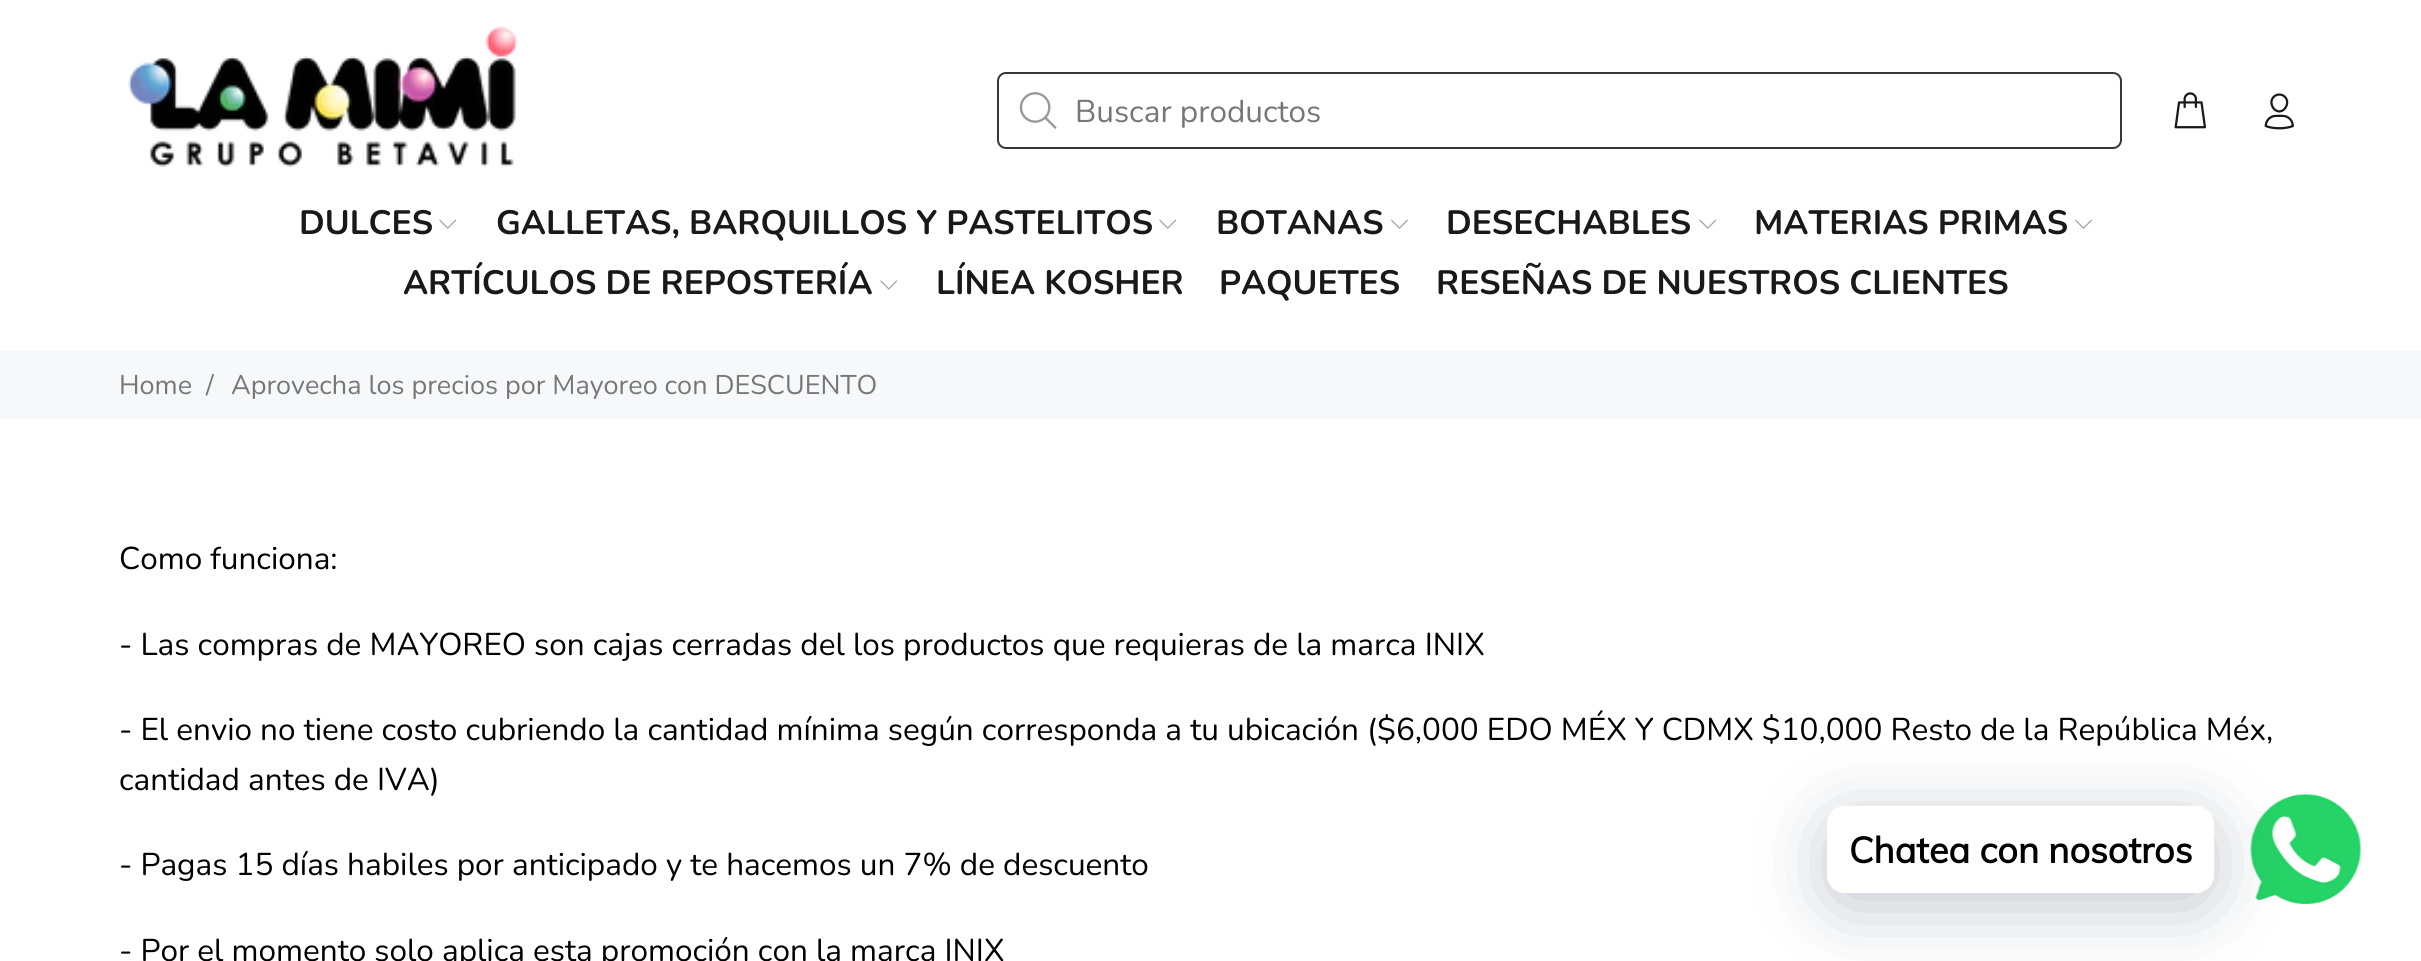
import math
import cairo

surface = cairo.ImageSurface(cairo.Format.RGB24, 2421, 961)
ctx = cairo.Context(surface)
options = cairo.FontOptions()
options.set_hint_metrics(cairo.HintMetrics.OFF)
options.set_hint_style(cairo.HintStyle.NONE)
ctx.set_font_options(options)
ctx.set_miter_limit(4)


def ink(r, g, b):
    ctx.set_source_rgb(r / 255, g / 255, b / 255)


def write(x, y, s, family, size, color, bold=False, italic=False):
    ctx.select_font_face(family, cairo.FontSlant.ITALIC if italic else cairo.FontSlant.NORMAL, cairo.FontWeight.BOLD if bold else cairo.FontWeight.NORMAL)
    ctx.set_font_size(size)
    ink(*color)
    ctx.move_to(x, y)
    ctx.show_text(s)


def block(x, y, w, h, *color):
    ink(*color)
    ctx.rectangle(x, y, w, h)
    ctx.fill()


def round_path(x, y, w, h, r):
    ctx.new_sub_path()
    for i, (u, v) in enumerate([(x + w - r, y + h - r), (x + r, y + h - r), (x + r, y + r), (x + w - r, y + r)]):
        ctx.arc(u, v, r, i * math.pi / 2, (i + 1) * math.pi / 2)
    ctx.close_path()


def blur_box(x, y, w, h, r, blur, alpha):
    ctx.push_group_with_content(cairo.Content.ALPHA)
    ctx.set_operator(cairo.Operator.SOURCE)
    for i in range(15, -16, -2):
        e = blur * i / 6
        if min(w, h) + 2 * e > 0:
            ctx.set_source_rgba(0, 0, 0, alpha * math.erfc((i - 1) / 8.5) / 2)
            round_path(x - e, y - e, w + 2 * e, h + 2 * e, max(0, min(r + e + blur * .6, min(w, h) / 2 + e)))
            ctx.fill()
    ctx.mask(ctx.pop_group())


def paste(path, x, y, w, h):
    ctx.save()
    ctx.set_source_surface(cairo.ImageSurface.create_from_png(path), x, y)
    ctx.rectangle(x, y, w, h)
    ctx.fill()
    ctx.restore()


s1 = dict(family="Nunito", size=31.5, color=(119, 119, 119))
s2 = dict(family="Nunito", size=33.75, color=(25, 25, 25), bold=True)
s3 = dict(family="Nunito", size=27, color=(119, 119, 119))
s4 = dict(family="Nunito", size=31.5, color=(0, 0, 0))
s5 = dict(family="Muli", size=36, color=(0, 0, 0), bold=True)

ink(255, 255, 255)
ctx.paint()
paste("pic1.png", 128, 26, 390, 141)
round_path(998, 73, 1123, 75, 8)
ink(55, 55, 55)
ctx.stroke()
paste("pic2.png", 1019, 92, 38, 37)
write(1075, 122, "Buscar productos", **s1)
paste("pic3.png", 2174, 92, 32, 37)
paste("pic4.png", 2264, 93, 30, 37)
write(299, 234, "DULCES", **s2)
paste("pic5.png", 439, 219, 18, 10)
write(496, 234, "GALLETAS, BARQUILLOS Y PASTELITOS", **s2)
paste("pic5.png", 1159, 219, 18, 10)
write(1216, 234, "BOTANAS", **s2)
paste("pic6.png", 1391, 219, 17, 10)
write(1446, 234, "DESECHABLES", **s2)
paste("pic5.png", 1699, 219, 18, 10)
write(1754, 234, "MATERIAS PRIMAS", **s2)
paste("pic6.png", 2075, 219, 17, 10)
write(403, 294, "ARTÍCULOS DE REPOSTERÍA", **s2)
paste("pic7.png", 880, 280, 18, 10)
write(936, 294, "LÍNEA KOSHER", **s2)
write(1219, 294, "PAQUETES", **s2)
write(1436, 294, "RESEÑAS DE NUESTROS CLIENTES", **s2)
block(0, 351, 2421, 68, 247, 248, 250)
write(119, 394, "Home", **s3)
write(206, 394, "/", **s3)
write(231, 394, "Aprovecha los precios por Mayoreo con DESCUENTO", **s3)
write(119, 569, "Como funciona:", **s4)
write(119, 655, "- Las compras de MAYOREO son cajas cerradas del los productos que requieras de la marca INIX", **s4)
write(119, 740, "- El envio no tiene costo cubriendo la cantidad mínima según corresponda a tu ubicación ($6,000 EDO MÉX Y CDMX $10,000 Resto de la República Méx,", **s4)
write(119, 790, "cantidad antes de IVA)", **s4)
write(119, 875, "- Pagas 15 días habiles por anticipado y te hacemos un 7% de descuento", **s4)
write(119, 961, "- Por el momento solo aplica esta promoción con la marca INIX", **s4)
paste("pic8.png", 2250, 794, 112, 110)
ink(0, 18, 46)
blur_box(1827, 819, 387, 88, 18, 36, 0.24)
ink(255, 255, 255)
round_path(1827, 806, 387, 87, 18)
ctx.fill()
write(1849, 863, "Chatea con nosotros", **s5)
surface.write_to_png("screenshot.png")
